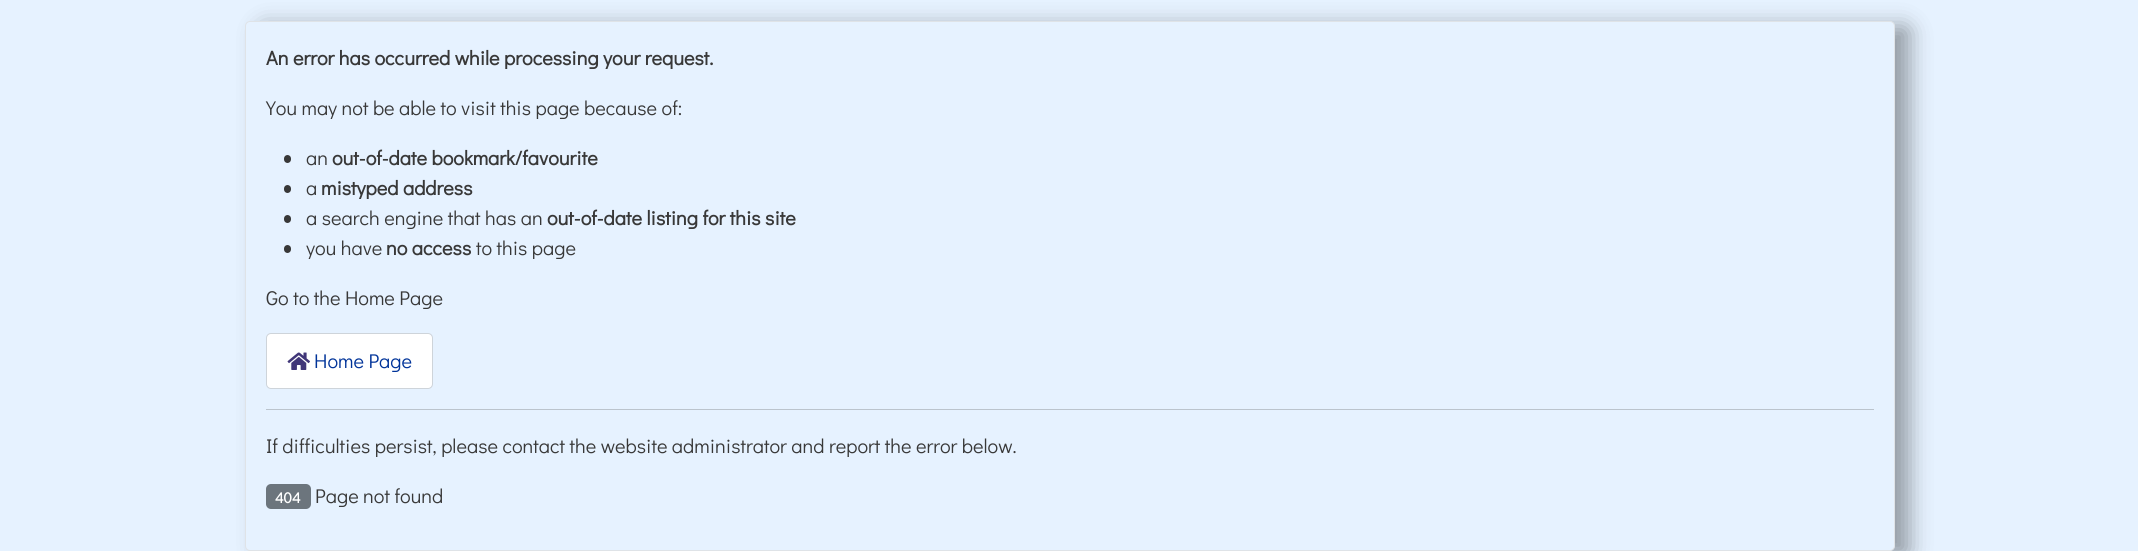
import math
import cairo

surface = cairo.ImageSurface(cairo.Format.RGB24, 2138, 551)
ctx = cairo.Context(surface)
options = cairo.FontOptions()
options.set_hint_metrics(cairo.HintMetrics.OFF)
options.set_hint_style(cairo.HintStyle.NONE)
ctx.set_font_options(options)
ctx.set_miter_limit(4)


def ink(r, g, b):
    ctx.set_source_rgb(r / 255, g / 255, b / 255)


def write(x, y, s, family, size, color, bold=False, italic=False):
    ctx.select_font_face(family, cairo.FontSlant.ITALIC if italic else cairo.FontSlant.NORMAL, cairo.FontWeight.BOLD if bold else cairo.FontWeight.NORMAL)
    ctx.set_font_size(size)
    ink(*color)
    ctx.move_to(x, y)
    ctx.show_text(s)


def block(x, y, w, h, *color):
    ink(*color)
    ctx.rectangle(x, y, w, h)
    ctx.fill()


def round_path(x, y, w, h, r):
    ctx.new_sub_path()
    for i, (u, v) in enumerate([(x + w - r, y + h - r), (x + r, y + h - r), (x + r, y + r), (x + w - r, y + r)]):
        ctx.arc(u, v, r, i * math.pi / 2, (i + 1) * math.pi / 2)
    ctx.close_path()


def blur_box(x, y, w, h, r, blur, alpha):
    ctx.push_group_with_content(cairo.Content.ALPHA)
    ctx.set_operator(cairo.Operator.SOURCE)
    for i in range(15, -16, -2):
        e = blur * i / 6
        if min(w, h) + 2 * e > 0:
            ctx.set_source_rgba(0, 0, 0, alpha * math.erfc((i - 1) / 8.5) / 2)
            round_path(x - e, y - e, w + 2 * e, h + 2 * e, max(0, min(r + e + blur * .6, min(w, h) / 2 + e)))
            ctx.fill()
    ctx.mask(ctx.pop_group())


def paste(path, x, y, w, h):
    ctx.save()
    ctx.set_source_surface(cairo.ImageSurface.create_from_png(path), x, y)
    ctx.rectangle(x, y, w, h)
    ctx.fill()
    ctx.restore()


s1 = dict(family="Didact Gothic", size=20, color=(56, 56, 56), bold=True)
s2 = dict(family="Didact Gothic", size=20, color=(56, 56, 56))
s3 = dict(family="Didact Gothic", size=20, color=(0, 51, 153))
s4 = dict(family="Didact Gothic", size=15, color=(255, 255, 255), bold=True)

ink(230, 242, 255)
ctx.paint()
ink(0, 0, 0)
blur_box(260, 26, 1650, 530, 5, 11, 0.35)
ink(230, 242, 255)
round_path(245.5, 21.5, 1649, 529, 4.5)
ctx.fill_preserve()
ink(223, 227, 231)
ctx.set_line_width(1)
ctx.stroke()
write(266, 65, "An error has occurred while processing your request.", **s1)
write(266, 115, "You may not be able to visit this page because of:", **s2)
round_path(284, 155, 7, 8, 3.5)
ctx.fill()
write(306, 165, "an", **s2)
write(332, 165, "out-of-date bookmark/favourite", **s1)
round_path(284, 185, 7, 8, 3.5)
ctx.fill()
write(306, 195, "a", **s2)
write(321, 195, "mistyped address", **s1)
round_path(284, 215, 7, 8, 3.5)
ctx.fill()
write(306, 225, "a search engine that has an", **s2)
write(547, 225, "out-of-date listing for this site", **s1)
round_path(284, 245, 7, 8, 3.5)
ctx.fill()
write(306, 255, "you have", **s2)
write(386, 255, "no access", **s1)
write(476, 255, "to this page", **s2)
write(266, 305, "Go to the Home Page", **s2)
ink(255, 255, 255)
round_path(266.5, 333.5, 166, 55, 4.5)
ctx.fill_preserve()
ink(206, 212, 218)
ctx.stroke()
paste("pic1.png", 287, 352, 23, 18)
write(314, 368, "Home Page", **s3)
block(266, 409, 1608, 1, 187, 196, 205)
write(266, 453, "If difficulties persist, please contact the website administrator and report the error below.", **s2)
ink(108, 117, 125)
round_path(266, 484, 45, 25, 5)
ctx.fill()
write(275, 503, "404", **s4)
write(315, 503, "Page not found", **s2)
surface.write_to_png("screenshot.png")
